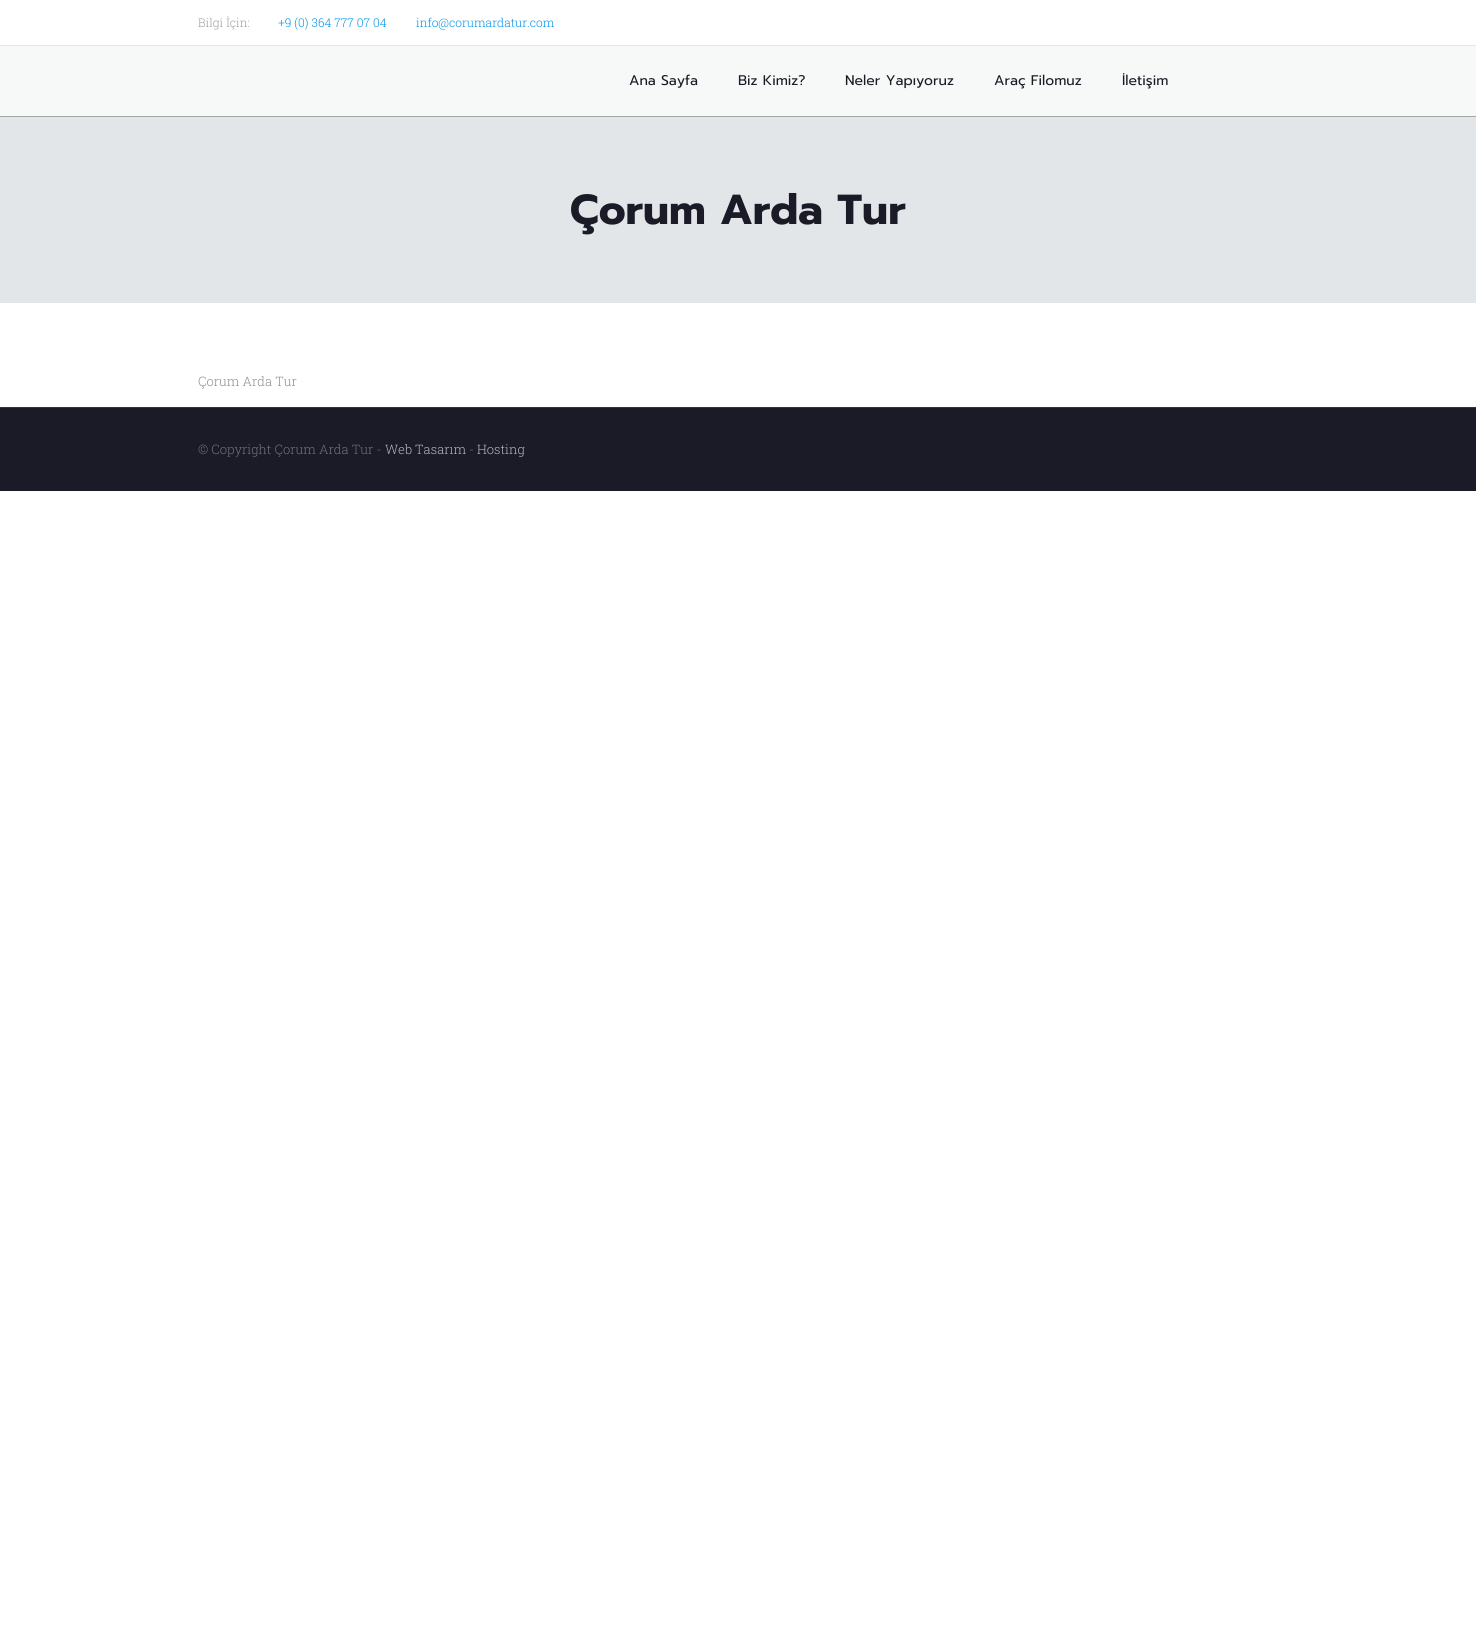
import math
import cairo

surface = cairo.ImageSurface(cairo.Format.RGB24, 1476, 1644)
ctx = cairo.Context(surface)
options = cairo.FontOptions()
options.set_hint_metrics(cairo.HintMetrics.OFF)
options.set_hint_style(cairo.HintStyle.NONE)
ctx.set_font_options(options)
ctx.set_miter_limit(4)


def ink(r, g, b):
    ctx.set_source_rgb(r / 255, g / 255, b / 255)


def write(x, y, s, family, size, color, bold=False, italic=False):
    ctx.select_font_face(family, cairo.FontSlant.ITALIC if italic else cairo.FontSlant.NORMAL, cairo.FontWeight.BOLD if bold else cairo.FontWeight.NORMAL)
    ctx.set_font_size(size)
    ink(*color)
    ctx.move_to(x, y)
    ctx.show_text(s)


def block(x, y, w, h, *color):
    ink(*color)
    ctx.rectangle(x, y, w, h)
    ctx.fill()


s1 = dict(family="Roboto Slab Light", size=12, color=(159, 159, 159))
s2 = dict(family="Roboto Slab Light", size=12, color=(0, 149, 235))
s3 = dict(family="Prompt", size=14, color=(26, 27, 39))
s4 = dict(family="Prompt", size=42, color=(26, 27, 39), bold=True)
s5 = dict(family="Roboto Slab Light", size=13, color=(141, 142, 144))
s6 = dict(family="Roboto Slab Light", size=13, color=(112, 113, 118))
s7 = dict(family="Roboto Slab Light", size=13, color=(177, 182, 186))

ink(255, 255, 255)
ctx.paint()
block(0, 117, 1476, 186, 227, 230, 232)
block(0, 45, 1476, 1, 229, 229, 233)
write(198, 27, "Bilgi İçin:", **s1)
write(278, 27, "+9 (0) 364 777 07 04", **s2)
write(416, 27, "info@corumardatur.com", **s2)
block(0, 46, 1476, 70, 247, 248, 248)
block(0, 116, 1476, 1, 165, 165, 166)
write(629, 85, "Ana Sayfa", **s3)
write(738, 85, "Biz Kimiz?", **s3)
write(845, 85, "Neler Yapıyoruz", **s3)
write(994, 85, "Araç Filomuz", **s3)
write(1122, 85, "İletişim", **s3)
write(570, 224, "Çorum Arda Tur", **s4)
write(198, 386, "Çorum Arda Tur", **s5)
block(0, 408, 1476, 83, 26, 27, 39)
block(0, 407, 1476, 1, 49, 50, 61)
write(198, 454, "© Copyright Çorum Arda Tur -", **s6)
write(385, 454, "Web Tasarım", **s7)
write(469, 454, "-", **s6)
write(477, 454, "Hosting", **s7)
surface.write_to_png("screenshot.png")
